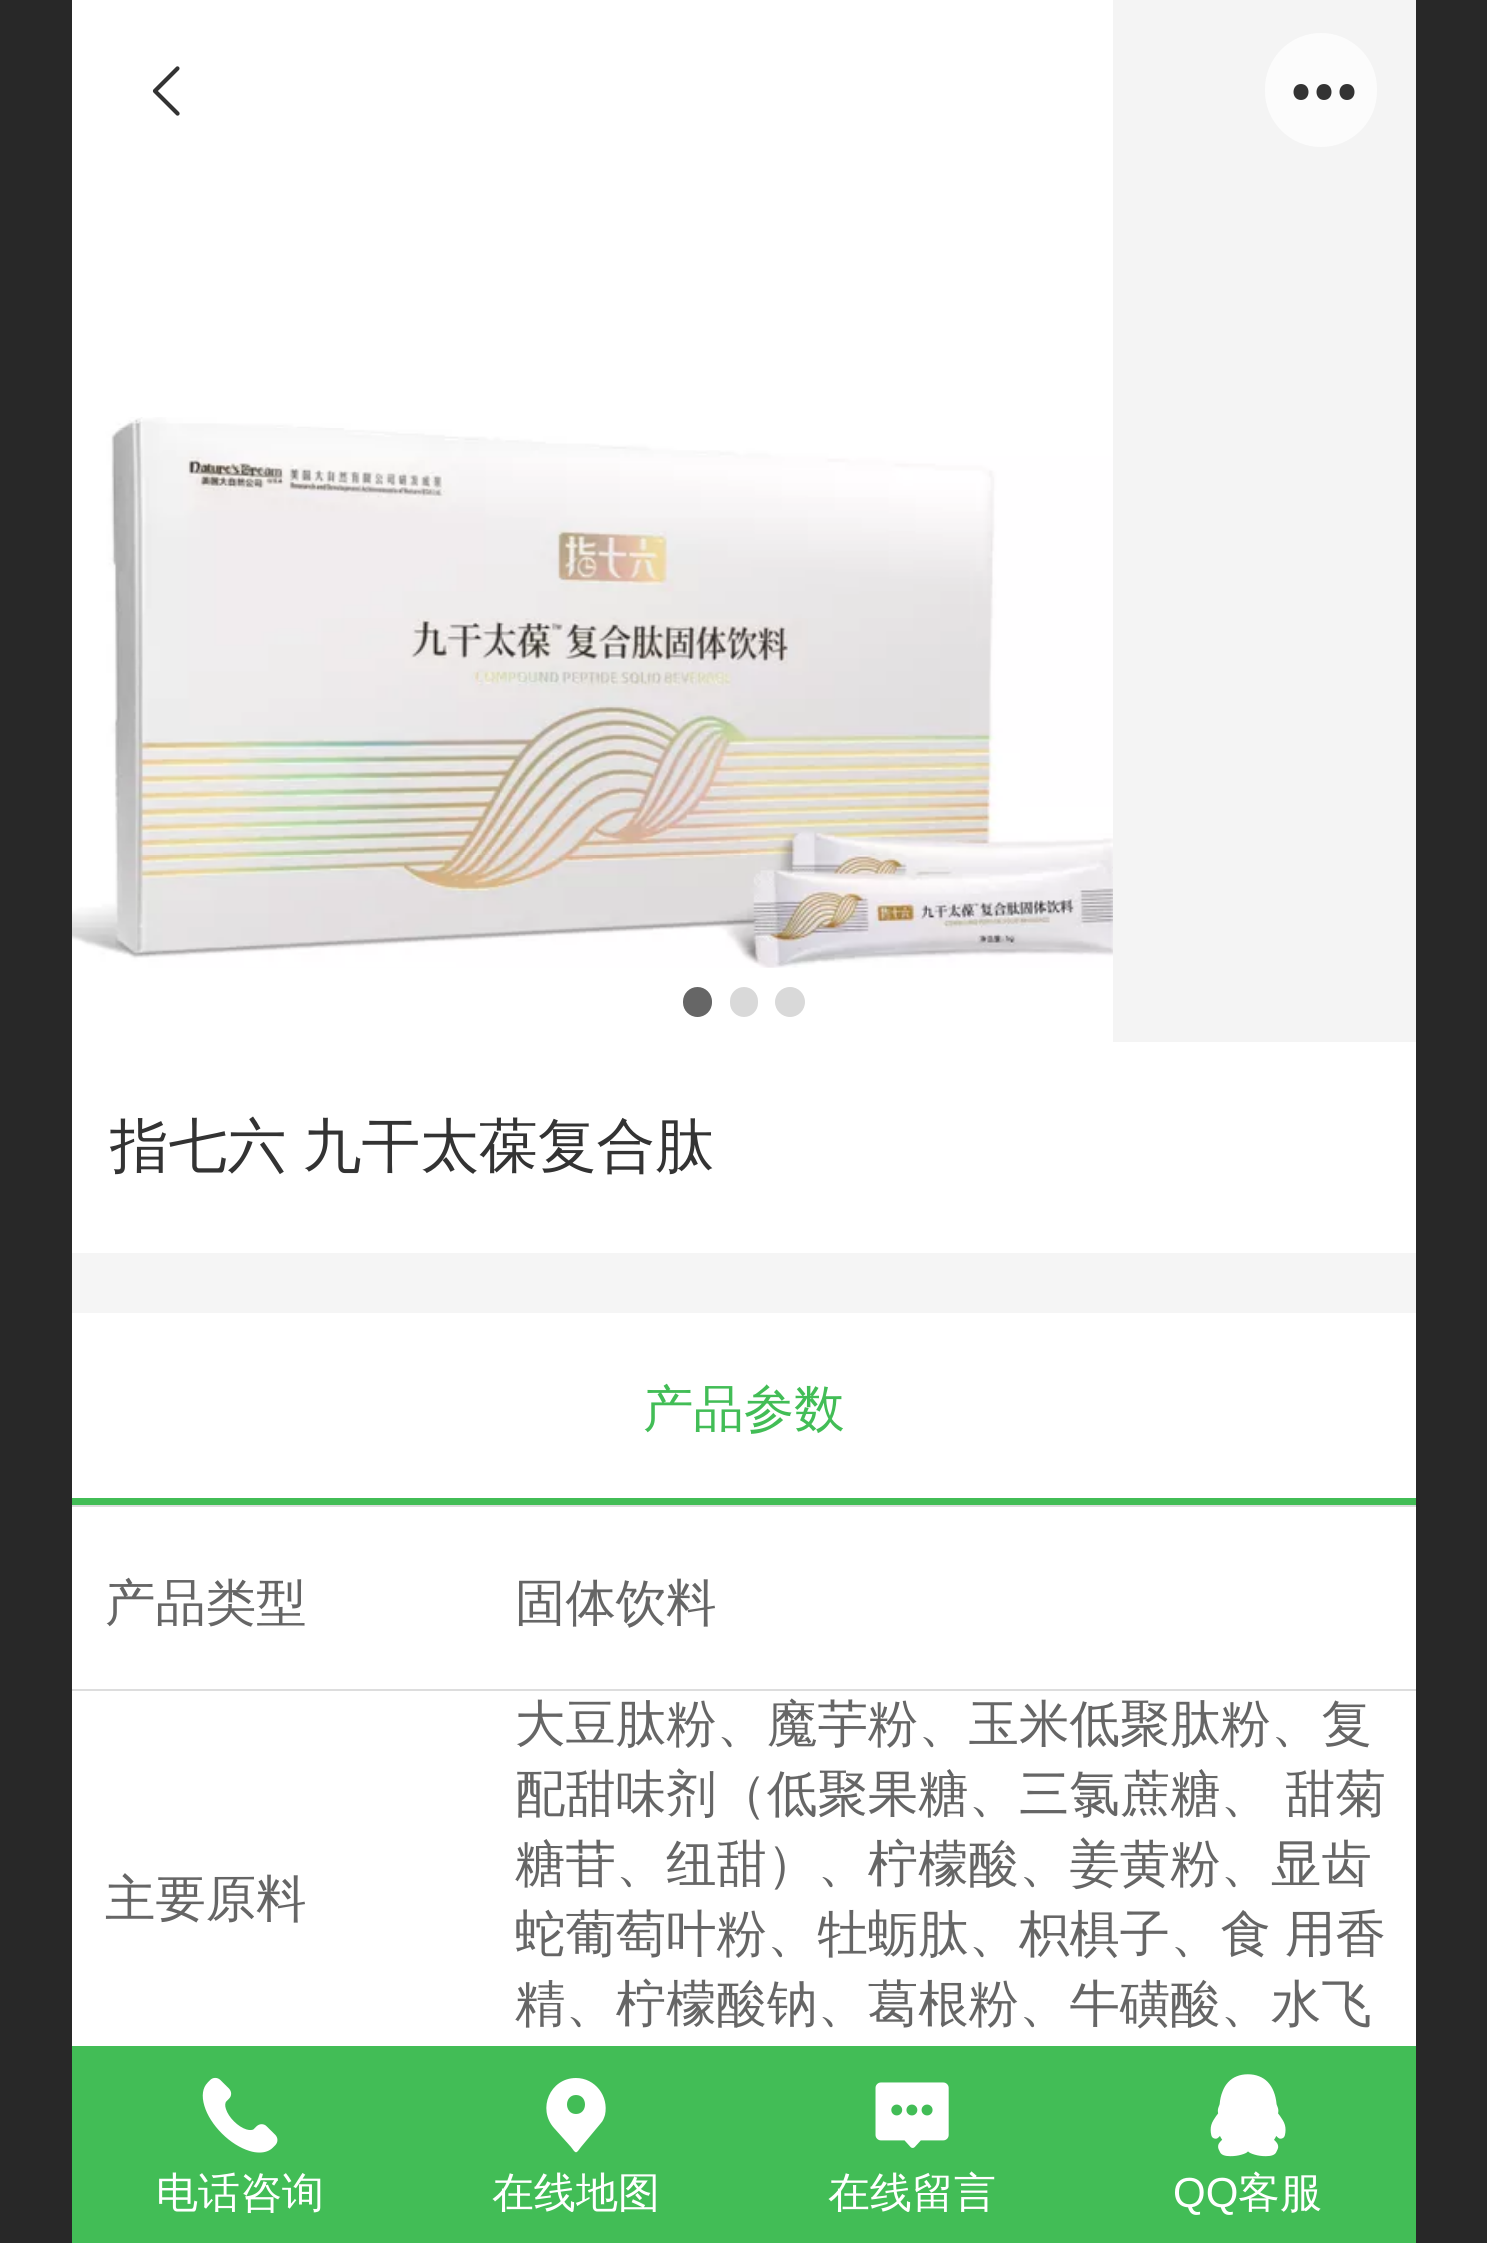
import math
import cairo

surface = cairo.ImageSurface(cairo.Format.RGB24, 1487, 2243)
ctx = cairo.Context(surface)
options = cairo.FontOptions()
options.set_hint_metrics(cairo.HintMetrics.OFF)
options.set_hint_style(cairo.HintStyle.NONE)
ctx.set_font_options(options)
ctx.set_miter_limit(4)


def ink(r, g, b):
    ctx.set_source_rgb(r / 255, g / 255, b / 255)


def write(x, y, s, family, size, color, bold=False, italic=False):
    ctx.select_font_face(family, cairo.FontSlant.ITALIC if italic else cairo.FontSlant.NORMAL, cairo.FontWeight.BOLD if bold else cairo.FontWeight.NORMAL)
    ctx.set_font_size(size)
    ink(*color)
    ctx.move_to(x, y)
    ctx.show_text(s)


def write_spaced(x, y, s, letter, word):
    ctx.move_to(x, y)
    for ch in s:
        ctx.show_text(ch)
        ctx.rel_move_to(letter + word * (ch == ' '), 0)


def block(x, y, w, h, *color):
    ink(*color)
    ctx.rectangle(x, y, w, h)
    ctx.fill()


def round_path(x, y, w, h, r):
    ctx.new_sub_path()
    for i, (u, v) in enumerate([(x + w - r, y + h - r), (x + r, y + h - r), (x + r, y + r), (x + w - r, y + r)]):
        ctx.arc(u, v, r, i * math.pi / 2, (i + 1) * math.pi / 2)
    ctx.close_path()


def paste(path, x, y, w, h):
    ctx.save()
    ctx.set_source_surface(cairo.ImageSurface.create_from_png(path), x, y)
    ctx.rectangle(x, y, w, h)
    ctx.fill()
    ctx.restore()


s1 = dict(family="WenQuanYi Zen Hei Medium", size=50.4, color=(66, 189, 86))
s2 = dict(family="WenQuanYi Zen Hei Medium", size=50.4, color=(102, 102, 102))
s3 = dict(family="WenQuanYi Zen Hei Medium", size=42, color=(255, 255, 255))
s4 = dict(family="Liberation Sans", size=42, color=(255, 255, 255))

ink(255, 255, 255)
ctx.paint()
block(0, 0, 72, 2243, 40, 40, 40)
paste("pic1.png", 152, 66, 28, 50)
block(1113, 0, 303, 1042, 244, 244, 244)
ink(252, 252, 252)
round_path(1265, 33, 112, 114, 56)
ctx.fill()
ink(51, 51, 51)
ctx.new_path()
ctx.move_to(1301, 100)
ctx.curve_to(1291, 100, 1291, 84, 1301, 84)
ctx.curve_to(1311, 84, 1311, 100, 1301, 100)
ctx.close_path()
ctx.move_to(1324, 100)
ctx.curve_to(1314, 100, 1314, 84, 1324, 84)
ctx.curve_to(1334, 84, 1334, 100, 1324, 100)
ctx.close_path()
ctx.move_to(1347, 100)
ctx.curve_to(1337, 100, 1337, 84, 1347, 84)
ctx.curve_to(1357, 84, 1357, 100, 1347, 100)
ctx.close_path()
ctx.fill()
paste("pic2.png", 72, 417, 1041, 551)
ink(102, 102, 102)
round_path(683, 987, 29, 30, 14.5)
ctx.fill()
ink(217, 217, 217)
round_path(730, 987, 28, 30, 14)
ctx.fill()
ctx.arc(790, 1002, 15, 0, 2 * math.pi)
ctx.fill()
ctx.select_font_face("WenQuanYi Zen Hei Medium")
ctx.set_font_size(58.75)
ink(51, 51, 51)
write_spaced(110, 1166, "指七六 九干太葆复合肽", 0, -1)
block(72, 1253, 1344, 60, 245, 245, 245)
block(72, 1505, 1344, 2, 221, 221, 221)
block(72, 1498, 1344, 7, 66, 189, 86)
write(643, 1426, "产品参数", **s1)
block(72, 1689, 1344, 2, 221, 221, 221)
write(105, 1620, "产品类型", **s2)
write(515, 1620, "固体饮料", **s2)
write(105, 1916, "主要原料", **s2)
write(515, 1741, "大豆肽粉、魔芋粉、玉米低聚肽粉、复", **s2)
write_spaced(515, 1811, "配甜味剂（低聚果糖、三氯蔗糖、 甜菊", 0, -1)
write(515, 1881, "糖苷、纽甜）、柠檬酸、姜黄粉、显齿", **s2)
write_spaced(515, 1951, "蛇葡萄叶粉、牡蛎肽、枳椇子、食 用香", 0, -1)
write(515, 2021, "精、柠檬酸钠、葛根粉、牛磺酸、水飞", **s2)
block(72, 2046, 1344, 197, 66, 189, 86)
paste("pic3.png", 202, 2077, 76, 76)
write(156, 2207, "电话咨询", **s3)
ctx.new_path()
ctx.move_to(576, 2078)
ctx.curve_to(550, 2078, 537, 2109, 554, 2128)
ctx.line_to(571, 2147)
ctx.curve_to(576, 2154, 576, 2154, 581, 2147)
ctx.line_to(601, 2123)
ctx.curve_to(603, 2121, 604, 2118, 605, 2115)
ctx.curve_to(609, 2096, 595, 2078, 576, 2078)
ctx.close_path()
ctx.move_to(576, 2114)
ctx.curve_to(564, 2114, 564, 2095, 576, 2095)
ctx.curve_to(588, 2095, 588, 2114, 576, 2114)
ctx.close_path()
ctx.fill()
write(492, 2207, "在线地图", **s3)
paste("pic4.png", 875, 2082, 74, 66)
write(828, 2207, "在线留言", **s3)
paste("pic5.png", 1210, 2074, 76, 83)
write(1173, 2207, "QQ", **s4)
write(1238, 2207, "客服", **s3)
block(1416, 0, 71, 2243, 40, 40, 40)
surface.write_to_png("screenshot.png")
